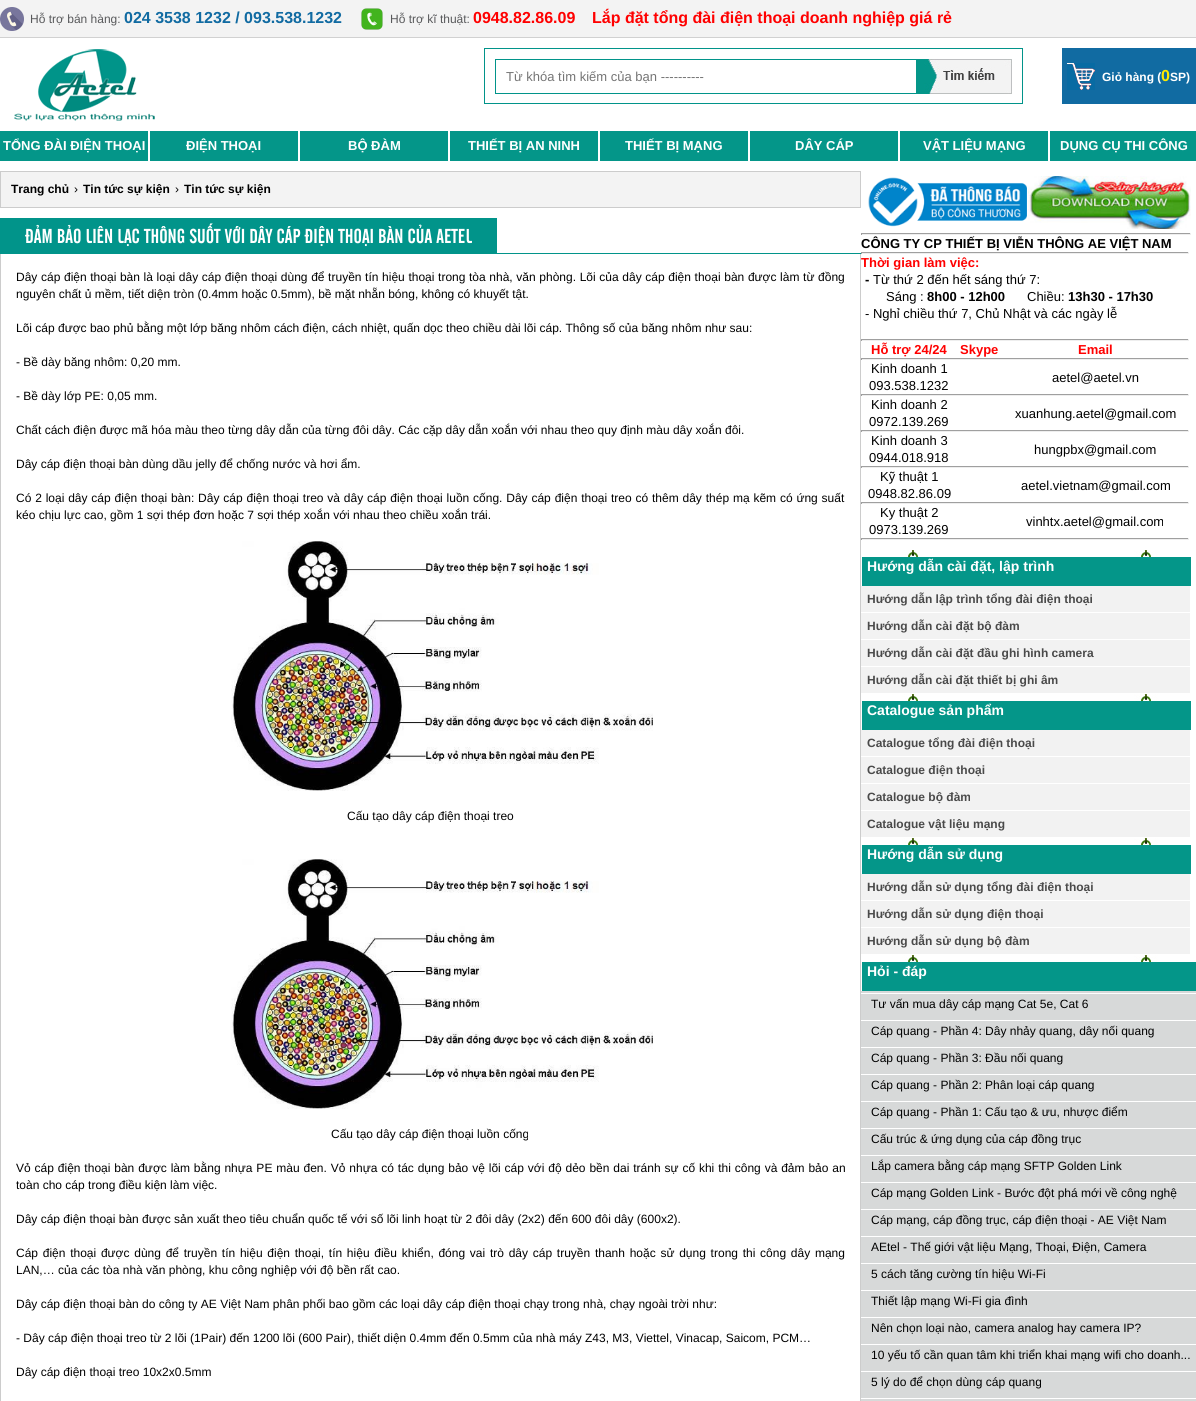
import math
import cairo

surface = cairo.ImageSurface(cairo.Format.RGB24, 1196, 1401)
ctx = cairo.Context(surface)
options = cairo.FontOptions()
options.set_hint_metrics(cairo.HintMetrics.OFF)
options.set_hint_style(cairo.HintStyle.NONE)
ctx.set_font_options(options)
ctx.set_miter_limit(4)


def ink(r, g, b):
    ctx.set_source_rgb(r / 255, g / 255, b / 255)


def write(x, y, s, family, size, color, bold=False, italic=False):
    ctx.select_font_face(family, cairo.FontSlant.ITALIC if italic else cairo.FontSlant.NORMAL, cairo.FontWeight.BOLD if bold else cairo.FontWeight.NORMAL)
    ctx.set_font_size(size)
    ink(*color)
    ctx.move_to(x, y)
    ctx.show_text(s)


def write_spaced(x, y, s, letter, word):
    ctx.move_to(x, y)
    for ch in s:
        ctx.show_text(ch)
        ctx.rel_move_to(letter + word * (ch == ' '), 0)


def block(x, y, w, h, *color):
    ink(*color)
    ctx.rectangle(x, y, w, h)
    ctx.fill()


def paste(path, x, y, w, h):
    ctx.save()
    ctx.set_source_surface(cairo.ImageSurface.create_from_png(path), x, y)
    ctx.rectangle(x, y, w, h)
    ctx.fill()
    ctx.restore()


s1 = dict(family="Liberation Sans", size=12, color=(88, 89, 91))
s2 = dict(family="Liberation Sans", size=16, color=(17, 107, 162), bold=True)
s3 = dict(family="Liberation Sans", size=16, color=(255, 0, 0), bold=True)
s4 = dict(family="Liberation Sans", size=13, color=(117, 117, 117))
s5 = dict(family="Liberation Sans", size=12, color=(255, 255, 255), bold=True)
s6 = dict(family="Liberation Sans", size=16, color=(255, 234, 0), bold=True)
s7 = dict(family="Liberation Sans", size=13, color=(255, 255, 255), bold=True)
s8 = dict(family="Liberation Sans", size=12, color=(0, 0, 0), bold=True)
s9 = dict(family="Liberation Sans", size=12, color=(0, 0, 0))
s10 = dict(family="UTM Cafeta", size=20, color=(255, 255, 255))
s11 = dict(family="Liberation Sans", size=13, color=(0, 0, 0), bold=True)
s12 = dict(family="Liberation Sans", size=13, color=(255, 0, 0), bold=True)
s13 = dict(family="Liberation Sans", size=13, color=(0, 0, 0))
s14 = dict(family="Liberation Sans", size=14, color=(255, 255, 255), bold=True)
s15 = dict(family="Liberation Sans", size=12, color=(74, 74, 74), bold=True)

ink(255, 255, 255)
ctx.paint()
block(0, 0, 1196, 37, 243, 243, 243)
block(0, 37, 1196, 1, 209, 209, 209)
paste("pic1.png", 0, 7, 24, 24)
write(30, 23, "Hỗ trợ bán hàng:", **s1)
write(124, 23, "024 3538 1232 / 093.538.1232", **s2)
paste("pic2.png", 361, 8, 22, 22)
write(390, 23, "Hỗ trợ kĩ thuật:", **s1)
write(473, 23, "0948.82.86.09", **s3)
write(592, 23, "Lắp đặt tổng đài điện thoại doanh nghiệp giá rẻ", **s3)
paste("pic3.png", 14, 49, 141, 72)
ctx.rectangle(484.5, 48.5, 538, 55)
ink(1, 148, 138)
ctx.set_line_width(1)
ctx.stroke()
block(495, 59, 421, 1, 1, 148, 138)
block(495, 93, 421, 1, 1, 148, 138)
block(495, 59, 1, 35, 1, 148, 138)
write(506, 81, "Từ khóa tìm kiếm của bạn ----------", **s4)
paste("pic4.png", 916, 59, 96, 35)
block(1062, 48, 134, 56, 17, 107, 162)
paste("pic5.png", 1067, 63, 28, 27)
write(1102, 81, "Giỏ hàng (", **s5)
write(1161, 81, "0", **s6)
write(1170, 81, "SP)", **s5)
block(0, 131, 148, 30, 4, 150, 137)
write(3, 150, "TỔNG ĐÀI ĐIỆN THOẠI", **s7)
block(150, 131, 148, 30, 4, 150, 137)
write(186, 150, "ĐIỆN THOẠI", **s7)
block(300, 131, 148, 30, 4, 150, 137)
write(348, 150, "BỘ ĐÀM", **s7)
block(450, 131, 148, 30, 4, 150, 137)
write(468, 150, "THIẾT BỊ AN NINH", **s7)
block(600, 131, 148, 30, 4, 150, 137)
write(625, 150, "THIẾT BỊ MẠNG", **s7)
block(750, 131, 148, 30, 4, 150, 137)
write(795, 150, "DÂY CÁP", **s7)
block(900, 131, 148, 30, 4, 150, 137)
write(923, 150, "VẬT LIỆU MẠNG", **s7)
block(1050, 131, 146, 30, 4, 150, 137)
write(1060, 150, "DỤNG CỤ THI CÔNG", **s7)
ink(243, 243, 243)
ctx.rectangle(0.5, 171.5, 860, 36)
ctx.fill_preserve()
ink(204, 204, 204)
ctx.stroke()
write(11, 193, "Trang chủ", **s8)
write(74, 193, "›", **s9)
write(83, 193, "Tin tức sự kiện", **s8)
write(175, 193, "›", **s9)
write(184, 193, "Tin tức sự kiện", **s8)
block(0, 253, 861, 1, 1, 148, 138)
block(0, 218, 497, 35, 1, 148, 138)
write(25, 243, "ĐẢM BẢO LIÊN LẠC THÔNG SUỐT VỚI DÂY CÁP ĐIỆN THOẠI BÀN CỦA AETEL", **s10)
block(860, 254, 1, 1147, 204, 204, 204)
block(0, 254, 1, 1147, 204, 204, 204)
ctx.select_font_face("Liberation Sans")
ctx.set_font_size(12)
ink(0, 0, 0)
write_spaced(16, 281, "Dây cáp điện thoại bàn là loại dây cáp điện thoại dùng để truyền tín hiệu thoại trong tòa nhà, văn phòng. Lõi của dây cáp điện thoại bàn được làm từ đồng", 0, 0.3)
write(16, 298, "nguyên chất ủ mềm, tiết diện tròn (0.4mm hoặc 0.5mm), bề mặt nhẵn bóng, không có khuyết tật.", **s9)
write(16, 332, "Lõi cáp được bao phủ bằng một lớp băng nhôm cách điện, cách nhiệt, quấn dọc theo chiều dài lõi cáp. Thông số của băng nhôm như sau:", **s9)
write(16, 366, "- Bề dày băng nhôm: 0,20 mm.", **s9)
write(16, 400, "- Bề dày lớp PE: 0,05 mm.", **s9)
write(16, 434, "Chất cách điện được mã hóa màu theo từng dây dẫn của từng đôi dây. Các cặp dây dẫn xoắn với nhau theo quy định màu dây xoắn đôi.", **s9)
write(16, 468, "Dây cáp điện thoại bàn dùng dầu jelly để chống nước và hơi ẩm.", **s9)
write_spaced(16, 502, "Có 2 loại dây cáp điện thoại bàn: Dây cáp điện thoại treo và dây cáp điện thoại luồn cống. Dây cáp điện thoại treo có thêm dây thép mạ kẽm có ứng suất", 0, 0.5)
write(16, 519, "kéo chịu lực cao, gồm 1 sợi thép đơn hoặc 7 sợi thép xoắn với nhau theo chiều xoắn trái.", **s9)
paste("pic6.png", 231, 541, 422, 250)
write(347, 820, "Cấu tạo dây cáp điện thoại treo", **s9)
paste("pic6.png", 231, 859, 422, 250)
write(331, 1138, "Cấu tạo dây cáp điện thoại luồn cống", **s9)
write_spaced(16, 1172, "Vỏ cáp điện thoại bàn được làm bằng nhựa PE màu đen. Vỏ nhựa có tác dụng bảo vệ lõi cáp với độ dẻo bền dai tránh sự cố khi thi công và đảm bảo an", 0, 0.55)
write(16, 1189, "toàn cho cáp trong điều kiện làm việc.", **s9)
write(16, 1223, "Dây cáp điện thoại bàn được sản xuất theo tiêu chuẩn quốc tế với số lõi linh hoạt từ 2 đôi dây (2x2) đến 600 đôi dây (600x2).", **s9)
write_spaced(16, 1257, "Cáp điện thoại được dùng để truyền tín hiệu điện thoại, tín hiệu điều khiển, đóng vai trò dây cáp truyền thanh hoặc sử dụng trong thi công dây mạng", 0, 1.4)
write(16, 1274, "LAN,… của các tòa nhà văn phòng, khu công nghiệp với độ bền rất cao.", **s9)
write(16, 1308, "Dây cáp điện thoại bàn do công ty AE Việt Nam phân phối bao gồm các loại dây cáp điện thoại chạy trong nhà, chạy ngoài trời như:", **s9)
write(16, 1342, "- Dây cáp điện thoại treo từ 2 lõi (1Pair) đến 1200 lõi (600 Pair), thiết diện 0.4mm đến 0.5mm của nhà máy Z43, M3, Viettel, Vinacap, Saicom, PCM…", **s9)
write(16, 1376, "Dây cáp điện thoại treo 10x2x0.5mm", **s9)
paste("pic7.png", 868, 177, 159, 50)
paste("pic8.png", 1028, 176, 163, 53)
block(861, 233, 330, 1, 159, 159, 159)
block(1190, 233, 1, 2, 238, 238, 238)
block(861, 234, 330, 1, 238, 238, 238)
block(861, 233, 1, 2, 159, 159, 159)
write(861, 248, "CÔNG TY CP THIẾT BỊ VIỄN THÔNG AE VIỆT NAM", **s11)
block(861, 252, 328, 1, 159, 159, 159)
block(1188, 252, 1, 2, 238, 238, 238)
block(861, 253, 328, 1, 238, 238, 238)
block(861, 252, 1, 2, 159, 159, 159)
write(861, 267, "Thời gian làm việc:", **s12)
write(865, 284, "-", **s11)
write(873, 284, "Từ thứ 2 đến hết sáng thứ 7:", **s13)
write(886, 301, "Sáng :", **s13)
write(927, 301, "8h00 - 12h00", **s11)
write(1027, 301, "Chiều:", **s13)
write(1068, 301, "13h30 - 17h30", **s11)
write(865, 318, "- Nghỉ chiều thứ 7, Chủ Nhật và các ngày lễ", **s13)
block(861, 339, 328, 1, 159, 159, 159)
block(1188, 339, 1, 2, 238, 238, 238)
block(861, 340, 328, 1, 238, 238, 238)
block(861, 339, 1, 2, 159, 159, 159)
write(871, 354, "Hỗ trợ 24/24", **s12)
write(960, 354, "Skype", **s12)
write(1078, 354, "Email", **s12)
block(861, 358, 328, 1, 159, 159, 159)
block(1188, 358, 1, 2, 238, 238, 238)
block(861, 359, 328, 1, 238, 238, 238)
block(861, 358, 1, 2, 159, 159, 159)
write(871, 373, "Kinh doanh 1", **s13)
write(869, 390, "093.538.1232", **s13)
write(1052, 382, "aetel@aetel.vn", **s13)
block(861, 394, 328, 1, 159, 159, 159)
block(1188, 394, 1, 2, 238, 238, 238)
block(861, 395, 328, 1, 238, 238, 238)
block(861, 394, 1, 2, 159, 159, 159)
write(871, 409, "Kinh doanh 2", **s13)
write(869, 426, "0972.139.269", **s13)
write(1015, 418, "xuanhung.aetel@gmail.com", **s13)
block(861, 430, 328, 1, 159, 159, 159)
block(1188, 430, 1, 2, 238, 238, 238)
block(861, 431, 328, 1, 238, 238, 238)
block(861, 430, 1, 2, 159, 159, 159)
write(871, 445, "Kinh doanh 3", **s13)
write(869, 462, "0944.018.918", **s13)
write(1034, 454, "hungpbx@gmail.com", **s13)
block(861, 466, 328, 1, 159, 159, 159)
block(1188, 466, 1, 2, 238, 238, 238)
block(861, 467, 328, 1, 238, 238, 238)
block(861, 466, 1, 2, 159, 159, 159)
write(880, 481, "Kỹ thuật 1", **s13)
write(868, 498, "0948.82.86.09", **s13)
write(1021, 490, "aetel.vietnam@gmail.com", **s13)
block(861, 502, 328, 1, 159, 159, 159)
block(1188, 502, 1, 2, 238, 238, 238)
block(861, 503, 328, 1, 238, 238, 238)
block(861, 502, 1, 2, 159, 159, 159)
write(880, 517, "Ky thuật 2", **s13)
write(869, 534, "0973.139.269", **s13)
write(1026, 526, "vinhtx.aetel@gmail.com", **s13)
block(861, 538, 328, 1, 159, 159, 159)
block(1188, 538, 1, 2, 238, 238, 238)
block(861, 539, 328, 1, 238, 238, 238)
block(861, 538, 1, 2, 159, 159, 159)
paste("pic9.png", 862, 550, 329, 36)
write(867, 571, "Hướng dẫn cài đặt, lập trình", **s14)
block(861, 586, 329, 26, 242, 242, 242)
write(867, 603, "Hướng dẫn lập trình tổng đài điện thoại", **s15)
block(861, 613, 329, 26, 242, 242, 242)
write(867, 630, "Hướng dẫn cài đặt bộ đàm", **s15)
block(861, 640, 329, 26, 242, 242, 242)
write(867, 657, "Hướng dẫn cài đặt đầu ghi hình camera", **s15)
block(861, 667, 329, 26, 242, 242, 242)
write(867, 684, "Hướng dẫn cài đặt thiết bị ghi âm", **s15)
paste("pic9.png", 862, 694, 329, 36)
write(867, 715, "Catalogue sản phẩm", **s14)
block(861, 730, 329, 26, 242, 242, 242)
write(867, 747, "Catalogue tổng đài điện thoại", **s15)
block(861, 757, 329, 26, 242, 242, 242)
write(867, 774, "Catalogue điện thoại", **s15)
block(861, 784, 329, 26, 242, 242, 242)
write(867, 801, "Catalogue bộ đàm", **s15)
block(861, 811, 329, 26, 242, 242, 242)
write(867, 828, "Catalogue vật liệu mạng", **s15)
paste("pic9.png", 862, 838, 329, 36)
write(867, 859, "Hướng dẫn sử dụng", **s14)
block(861, 874, 329, 26, 242, 242, 242)
write(867, 891, "Hướng dẫn sử dụng tổng đài điện thoại", **s15)
block(861, 901, 329, 26, 242, 242, 242)
write(867, 918, "Hướng dẫn sử dụng điện thoại", **s15)
block(861, 928, 329, 26, 242, 242, 242)
write(867, 945, "Hướng dẫn sử dụng bộ đàm", **s15)
paste("pic10.png", 862, 955, 334, 36)
write(867, 976, "Hỏi - đáp", **s14)
paste("pic11.png", 861, 991, 335, 27)
write(871, 1008, "Tư vấn mua dây cáp mạng Cat 5e, Cat 6", **s9)
paste("pic11.png", 861, 1018, 335, 27)
write(871, 1035, "Cáp quang - Phần 4: Dây nhảy quang, dây nối quang", **s9)
paste("pic11.png", 861, 1045, 335, 27)
write(871, 1062, "Cáp quang - Phần 3: Đầu nối quang", **s9)
paste("pic11.png", 861, 1072, 335, 27)
write(871, 1089, "Cáp quang - Phần 2: Phân loại cáp quang", **s9)
paste("pic11.png", 861, 1099, 335, 27)
write(871, 1116, "Cáp quang - Phần 1: Cấu tạo & ưu, nhược điểm", **s9)
paste("pic11.png", 861, 1126, 335, 27)
write(871, 1143, "Cấu trúc & ứng dụng của cáp đồng trục", **s9)
paste("pic11.png", 861, 1153, 335, 27)
write(871, 1170, "Lắp camera bằng cáp mạng SFTP Golden Link", **s9)
paste("pic11.png", 861, 1180, 335, 27)
write(871, 1197, "Cáp mạng Golden Link - Bước đột phá mới về công nghệ", **s9)
paste("pic11.png", 861, 1207, 335, 27)
write(871, 1224, "Cáp mạng, cáp đồng trục, cáp điện thoại - AE Việt Nam", **s9)
paste("pic11.png", 861, 1234, 335, 27)
write(871, 1251, "AEtel - Thế giới vật liệu Mạng, Thoại, Điện, Camera", **s9)
paste("pic11.png", 861, 1261, 335, 27)
write(871, 1278, "5 cách tăng cường tín hiệu Wi-Fi", **s9)
paste("pic11.png", 861, 1288, 335, 27)
write(871, 1305, "Thiết lập mạng Wi-Fi gia đình", **s9)
paste("pic11.png", 861, 1315, 335, 27)
write(871, 1332, "Nên chọn loại nào, camera analog hay camera IP?", **s9)
paste("pic11.png", 861, 1342, 335, 27)
write(871, 1359, "10 yếu tố cần quan tâm khi triển khai mạng wifi cho doanh...", **s9)
paste("pic11.png", 861, 1369, 335, 27)
write(871, 1386, "5 lý do để chọn dùng cáp quang", **s9)
paste("pic12.png", 861, 1396, 335, 5)
surface.write_to_png("screenshot.png")
